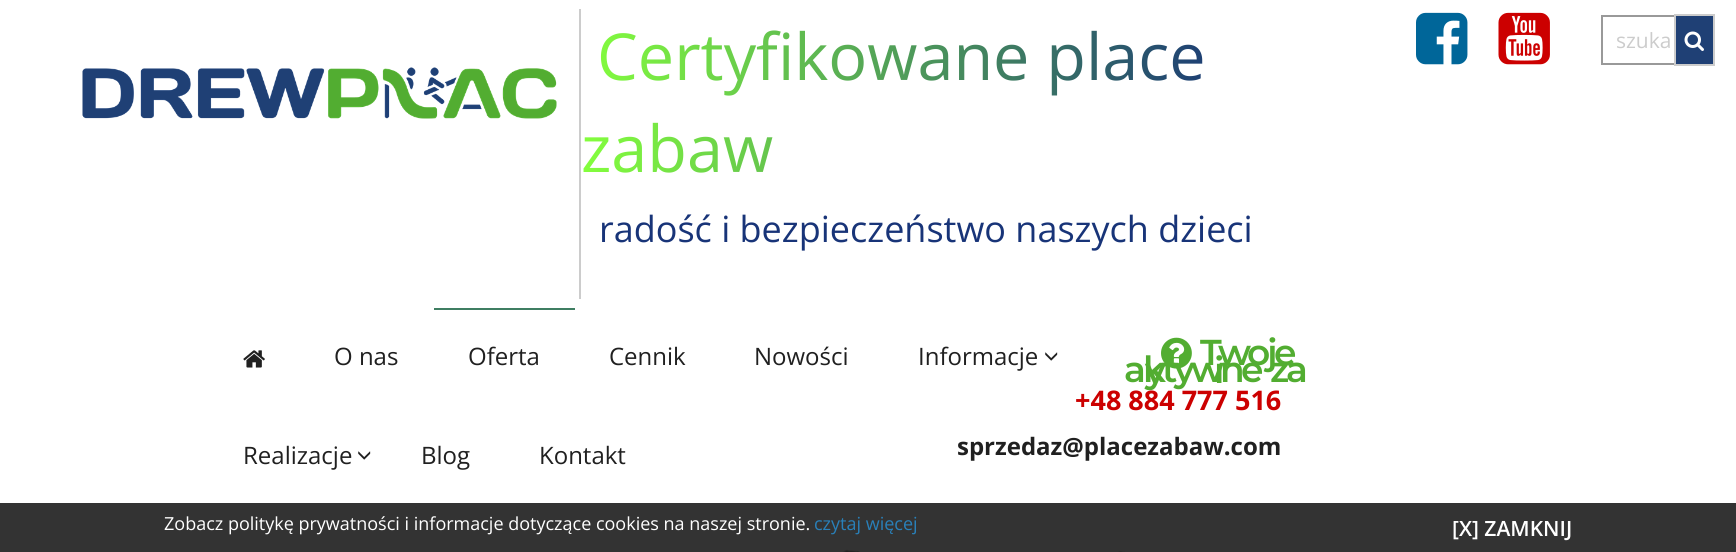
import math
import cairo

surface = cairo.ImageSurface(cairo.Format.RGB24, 1736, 552)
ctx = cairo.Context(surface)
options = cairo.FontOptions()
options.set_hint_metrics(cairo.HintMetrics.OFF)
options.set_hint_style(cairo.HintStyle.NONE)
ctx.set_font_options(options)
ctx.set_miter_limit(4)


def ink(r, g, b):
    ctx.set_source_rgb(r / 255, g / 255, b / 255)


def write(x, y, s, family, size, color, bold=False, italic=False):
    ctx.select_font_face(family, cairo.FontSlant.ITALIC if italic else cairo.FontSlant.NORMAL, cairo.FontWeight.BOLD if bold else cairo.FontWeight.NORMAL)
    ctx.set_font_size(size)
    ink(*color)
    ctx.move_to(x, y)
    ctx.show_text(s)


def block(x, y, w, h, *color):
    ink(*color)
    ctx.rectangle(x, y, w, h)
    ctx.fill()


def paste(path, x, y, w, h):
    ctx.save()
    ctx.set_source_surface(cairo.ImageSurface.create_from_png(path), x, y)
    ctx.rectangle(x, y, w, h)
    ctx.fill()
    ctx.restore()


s1 = dict(family="Open Sans", size=36, color=(24, 52, 120))
s2 = dict(family="Open Sans", size=21, color=(204, 204, 204))
s3 = dict(family="Open Sans", size=24, color=(32, 32, 32))
s4 = dict(family="Montserrat SemiBold", size=36, color=(82, 173, 49))
s5 = dict(family="Open Sans", size=27, color=(204, 0, 0), bold=True)
s6 = dict(family="Open Sans", size=24, color=(32, 32, 32), bold=True)
s7 = dict(family="Open Sans", size=18, color=(255, 255, 255))
s8 = dict(family="Open Sans", size=18, color=(41, 128, 185))
s9 = dict(family="Open Sans SemiBold", size=21, color=(255, 255, 255))

ink(255, 255, 255)
ctx.paint()
block(0, 503, 1736, 49, 51, 51, 51)
block(579, 9, 2, 290, 204, 204, 204)
ctx.select_font_face("Open Sans")
ctx.set_font_size(64.75)
gradient = cairo.LinearGradient(581, 102, 1303, 102)
gradient.add_color_stop_rgba(0, 0.518, 1, 0.239, 1)
gradient.add_color_stop_rgba(1, 0.055, 0.133, 0.486, 1)
ctx.set_source(gradient)
ctx.move_to(597, 80)
ctx.show_text("Certyfikowane place")
ctx.move_to(581, 172)
ctx.show_text("zabaw")
write(599, 242, "radość i bezpieczeństwo naszych dzieci", **s1)
paste("pic1.png", 1416, 12, 52, 53)
paste("pic2.png", 1498, 12, 52, 53)
ctx.rectangle(1602, 16, 88, 48)
ink(153, 153, 153)
ctx.stroke()
write(1616, 48, "szuka", **s2)
ink(31, 64, 117)
ctx.rectangle(1675, 15, 39, 50)
ctx.fill_preserve()
ink(204, 204, 204)
ctx.stroke()
paste("pic3.png", 1684, 31, 20, 20)
paste("pic4.png", 82, 67, 475, 52)
paste("pic5.png", 243, 350, 22, 18)
write(334, 365, "O nas", **s3)
block(434, 308, 141, 2, 63, 126, 98)
write(468, 365, "Oferta", **s3)
write(609, 365, "Cennik", **s3)
write(754, 365, "Nowości", **s3)
write(918, 365, "Informacje", **s3)
paste("pic6.png", 1045, 352, 13, 9)
write(243, 464, "Realizacje", **s3)
paste("pic6.png", 358, 451, 13, 9)
write(421, 464, "Blog", **s3)
write(539, 464, "Kontakt", **s3)
paste("pic7.png", 1161, 337, 31, 32)
write(1200, 365, "T", **s4)
write(1218, 365, "w", **s4)
write(1247, 365, "o", **s4)
write(1267, 365, "j", **s4)
write(1124, 382, "a", **s4)
write(1143, 382, "k", **s4)
write(1162, 382, "t", **s4)
write(1174, 382, "y", **s4)
write(1191, 382, "w", **s4)
write(1214, 383, "i", **s4)
write(1274, 365, "e", **s4)
write(1145, 383, "y", **s4)
write(1220, 382, "n", **s4)
write(1241, 382, "e", **s4)
write(1270, 382, "z", **s4)
write(1286, 382, "a", **s4)
write(1075, 410, "+48 884 777 516", **s5)
write(957, 455, "sprzedaz@placezabaw.com", **s6)
write(164, 530, "Zobacz politykę prywatności i informacje dotyczące cookies na naszej stronie.", **s7)
write(814, 530, "czytaj więcej", **s8)
write(1452, 536, "[X] ZAMKNIJ", **s9)
paste("pic8.png", 842, 549, 18, 3)
paste("pic9.png", 1118, 551, 7, 1)
surface.write_to_png("screenshot.png")
